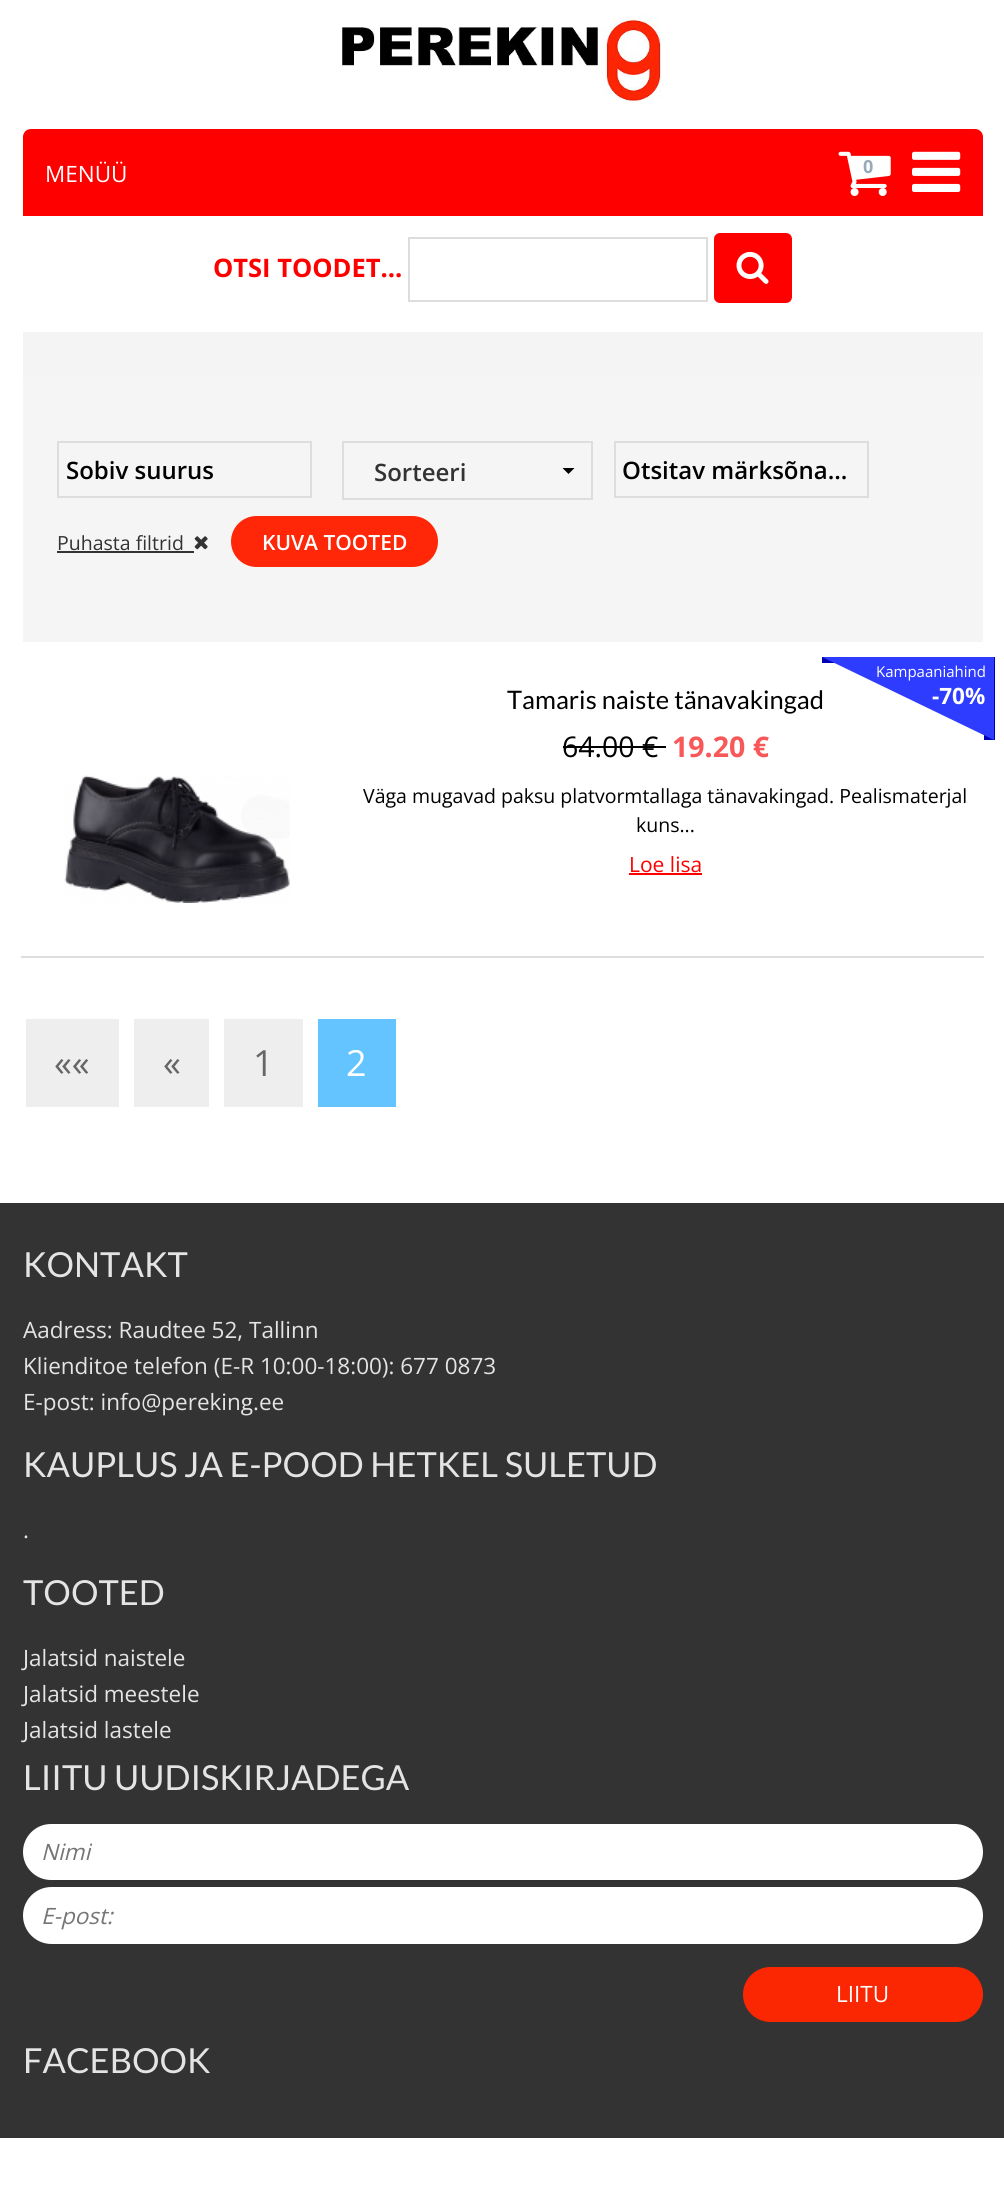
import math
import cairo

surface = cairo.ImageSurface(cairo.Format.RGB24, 1004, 2197)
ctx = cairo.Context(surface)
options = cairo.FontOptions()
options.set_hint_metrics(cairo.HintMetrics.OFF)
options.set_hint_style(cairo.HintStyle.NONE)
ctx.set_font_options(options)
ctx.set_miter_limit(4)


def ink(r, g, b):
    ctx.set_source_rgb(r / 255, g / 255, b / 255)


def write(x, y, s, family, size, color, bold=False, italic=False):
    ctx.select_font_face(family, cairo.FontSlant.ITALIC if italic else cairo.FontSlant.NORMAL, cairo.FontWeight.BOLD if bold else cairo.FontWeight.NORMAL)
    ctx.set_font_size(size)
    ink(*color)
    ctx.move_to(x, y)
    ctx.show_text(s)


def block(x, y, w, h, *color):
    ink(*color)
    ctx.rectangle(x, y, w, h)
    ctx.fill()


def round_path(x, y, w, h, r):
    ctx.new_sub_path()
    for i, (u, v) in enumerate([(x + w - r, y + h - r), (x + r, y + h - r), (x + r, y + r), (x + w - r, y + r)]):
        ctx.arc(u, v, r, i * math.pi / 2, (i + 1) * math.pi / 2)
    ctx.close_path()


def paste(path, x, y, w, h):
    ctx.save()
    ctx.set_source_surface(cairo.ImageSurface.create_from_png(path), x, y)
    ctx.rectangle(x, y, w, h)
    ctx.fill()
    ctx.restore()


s1 = dict(family="Open Sans", size=22.5, color=(255, 255, 255))
s2 = dict(family="Open Sans", size=18, color=(152, 170, 185), bold=True)
s3 = dict(family="Open Sans", size=25.5, color=(255, 0, 0), bold=True)
s4 = dict(family="Open Sans SemiBold", size=24, color=(0, 0, 0))
s5 = dict(family="Open Sans SemiBold", size=24, color=(51, 51, 51))
s6 = dict(family="Open Sans", size=19.5, color=(51, 51, 51))
s7 = dict(family="Open Sans SemiBold", size=21, color=(255, 255, 255))
s8 = dict(family="Open Sans", size=15, color=(255, 255, 255))
s9 = dict(family="Open Sans", size=22.5, color=(255, 255, 255), bold=True)
s10 = dict(family="Lato", size=25.5, color=(0, 0, 0))
s11 = dict(family="Open Sans", size=28.5, color=(0, 0, 0))
s12 = dict(family="Open Sans", size=28.5, color=(248, 88, 88), bold=True)
s13 = dict(family="Open Sans", size=19.5, color=(0, 0, 0))
s14 = dict(family="Open Sans", size=21, color=(255, 0, 0))
s15 = dict(family="Open Sans", size=36, color=(102, 102, 102))
s16 = dict(family="Open Sans", size=36, color=(255, 255, 255))
s17 = dict(family="Lato", size=34.5, color=(228, 228, 228))
s18 = dict(family="Open Sans", size=22.5, color=(228, 228, 228))
s19 = dict(family="Open Sans", size=22.5, color=(117, 117, 117), italic=True)

ink(255, 255, 255)
ctx.paint()
paste("pic1.png", 342, 15, 319, 89)
block(23, 129, 960, 8, 249, 249, 249)
ink(254, 0, 0)
ctx.new_path()
ctx.move_to(31, 129)
ctx.line_to(975, 129)
ctx.curve_to(979.5, 129, 983, 132.5, 983, 137)
ctx.line_to(983, 216)
ctx.line_to(23, 216)
ctx.line_to(23, 137)
ctx.curve_to(23, 132.5, 26.5, 129, 31, 129)
ctx.close_path()
ctx.fill()
write(45, 182, "MENÜÜ", **s1)
paste("pic2.png", 912, 151, 49, 41)
paste("pic3.png", 838, 151, 53, 45)
write(863, 173, "0", **s2)
write(213, 277, "OTSI TOODET...", **s3)
ctx.rectangle(409, 238, 298, 63)
ink(221, 221, 221)
ctx.stroke()
ink(255, 0, 0)
round_path(714, 233, 78, 70, 6)
ctx.fill()
paste("pic4.png", 736, 251, 33, 33)
block(23, 332, 960, 45, 244, 244, 244)
block(23, 377, 960, 265, 245, 245, 245)
ctx.rectangle(58, 442, 253, 55)
ink(221, 221, 221)
ctx.stroke()
write(66, 479, "Sobiv suurus", **s4)
ctx.rectangle(343, 442, 249, 57)
ink(221, 221, 221)
ctx.stroke()
write(374, 481, "Sorteeri", **s5)
ink(0, 0, 0)
ctx.new_path()
ctx.move_to(562.5, 468)
ctx.line_to(574.5, 468)
ctx.line_to(568.5, 474)
ctx.close_path()
ctx.fill()
ctx.rectangle(615, 442, 253, 55)
ink(221, 221, 221)
ctx.stroke()
write(622, 479, "Otsitav märksõna...", **s4)
write(57, 550, "Puhasta filtrid", **s6)
block(57, 551, 137, 2, 51, 51, 51)
paste("pic5.png", 194, 536, 14, 14)
ink(255, 39, 7)
round_path(231, 516, 207, 51, 25.5)
ctx.fill()
write(262, 550, "KUVA TOOTED", **s7)
block(21, 956, 963, 2, 221, 221, 221)
block(822, 657, 13, 6, 0, 0, 180)
block(984, 657, 11, 83, 0, 0, 180)
ink(46, 60, 255)
ctx.new_path()
ctx.move_to(822, 657)
ctx.line_to(994, 657)
ctx.line_to(994, 740)
ctx.close_path()
ctx.fill()
write(876, 677, "Kampaaniahind", **s8)
write(932, 704, "-70%", **s9)
paste("pic6.png", 64, 775, 226, 128)
write(507, 709, "Tamaris naiste tänavakingad", **s10)
write(562, 757, "64.00 €", **s11)
block(563, 746, 103, 2, 0, 0, 0)
write(672, 757, "19.20 €", **s12)
write(363, 803, "Väga mugavad paksu platvormtallaga tänavakingad. Pealismaterjal", **s13)
write(636, 832, "kuns...", **s13)
write(629, 872, "Loe lisa", **s14)
block(629, 873, 73, 2, 254, 0, 0)
block(26, 1019, 93, 88, 238, 238, 238)
write(54, 1076, "««", **s15)
block(134, 1019, 75, 88, 238, 238, 238)
write(163, 1076, "«", **s15)
block(224, 1019, 79, 88, 238, 238, 238)
write(253, 1076, "1", **s15)
block(318, 1019, 78, 88, 99, 196, 255)
write(346, 1076, "2", **s16)
block(0, 1203, 1004, 935, 51, 51, 51)
write(23, 1277, "KONTAKT", **s17)
write(23, 1338, "Aadress: Raudtee 52, Tallinn", **s18)
write(23, 1374, "Klienditoe telefon (E-R 10:00-18:00): 677 0873", **s18)
write(23, 1410, "E-post: info@pereking.ee", **s18)
write(23, 1477, "KAUPLUS JA E-POOD HETKEL SULETUD", **s17)
write(23, 1538, ".", **s18)
write(23, 1605, "TOOTED", **s17)
write(23, 1666, "Jalatsid naistele", **s18)
write(23, 1702, "Jalatsid meestele", **s18)
write(23, 1738, "Jalatsid lastele", **s18)
write(23, 1790, "LIITU UUDISKIRJADEGA", **s17)
ink(255, 255, 255)
round_path(23, 1824, 960, 56, 28)
ctx.fill()
write(41, 1860, "Nimi", **s19)
ink(255, 255, 255)
round_path(23, 1887, 960, 57, 28.5)
ctx.fill()
write(41, 1924, "E-post:", **s19)
ink(251, 39, 2)
round_path(743, 1967, 240, 55, 27.5)
ctx.fill()
write(836, 2002, "LIITU", **s1)
write(23, 2073, "FACEBOOK", **s17)
surface.write_to_png("screenshot.png")
